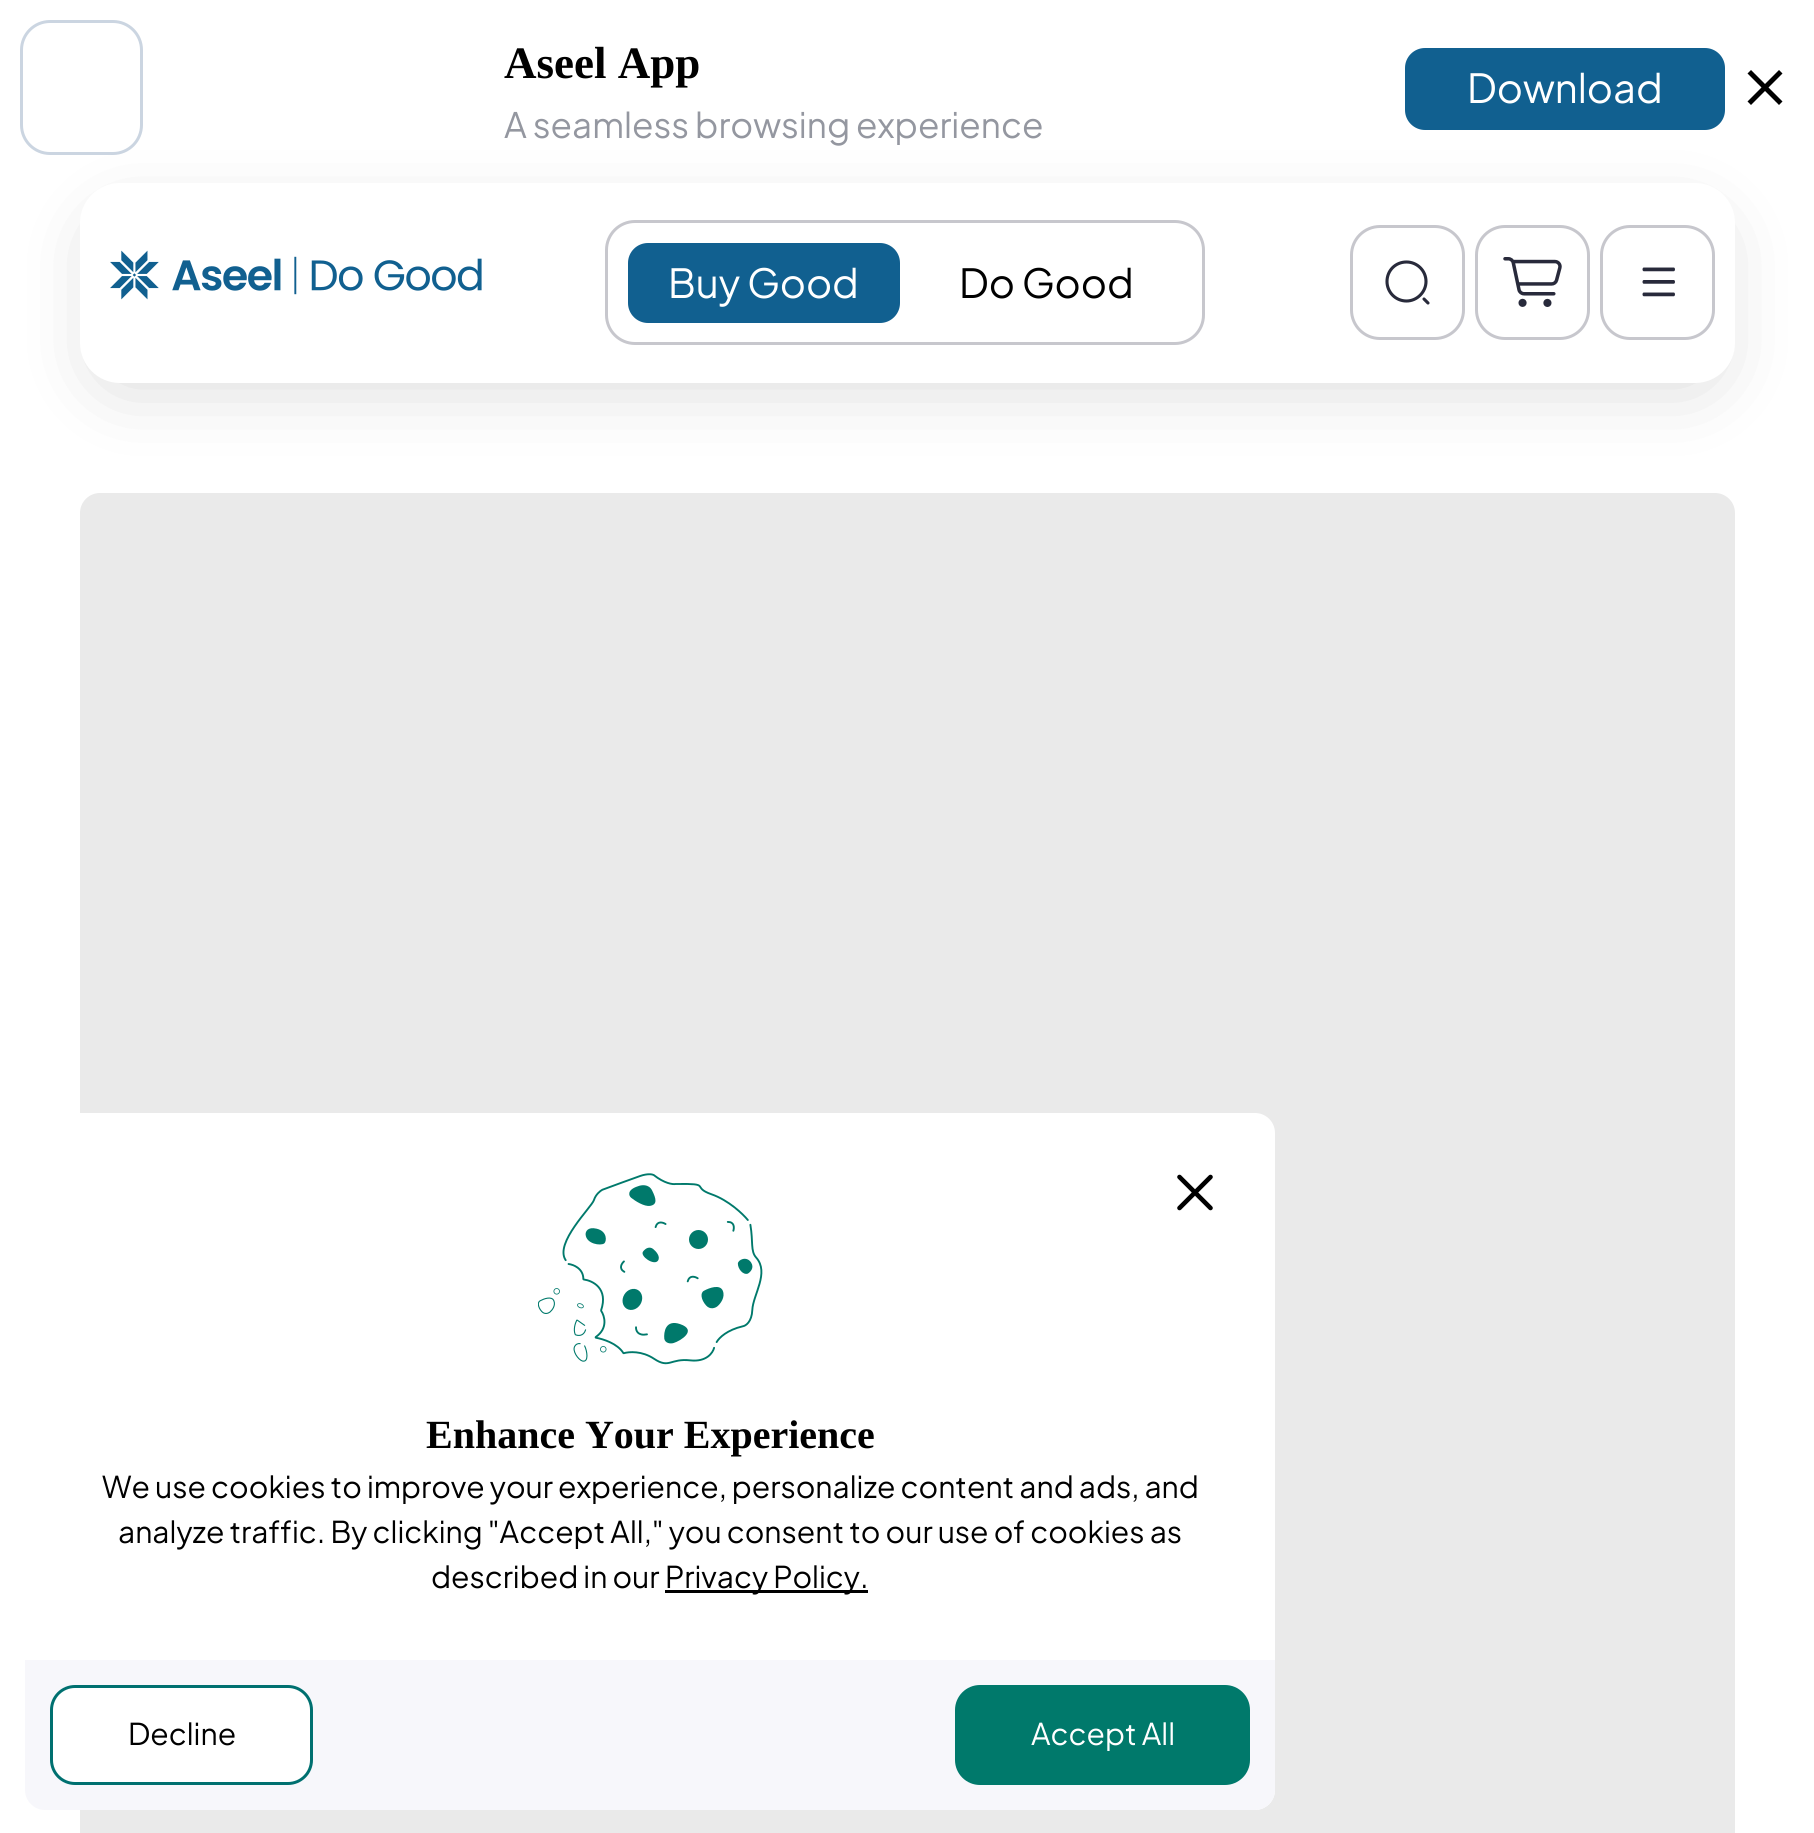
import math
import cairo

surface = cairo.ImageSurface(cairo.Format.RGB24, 1814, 1833)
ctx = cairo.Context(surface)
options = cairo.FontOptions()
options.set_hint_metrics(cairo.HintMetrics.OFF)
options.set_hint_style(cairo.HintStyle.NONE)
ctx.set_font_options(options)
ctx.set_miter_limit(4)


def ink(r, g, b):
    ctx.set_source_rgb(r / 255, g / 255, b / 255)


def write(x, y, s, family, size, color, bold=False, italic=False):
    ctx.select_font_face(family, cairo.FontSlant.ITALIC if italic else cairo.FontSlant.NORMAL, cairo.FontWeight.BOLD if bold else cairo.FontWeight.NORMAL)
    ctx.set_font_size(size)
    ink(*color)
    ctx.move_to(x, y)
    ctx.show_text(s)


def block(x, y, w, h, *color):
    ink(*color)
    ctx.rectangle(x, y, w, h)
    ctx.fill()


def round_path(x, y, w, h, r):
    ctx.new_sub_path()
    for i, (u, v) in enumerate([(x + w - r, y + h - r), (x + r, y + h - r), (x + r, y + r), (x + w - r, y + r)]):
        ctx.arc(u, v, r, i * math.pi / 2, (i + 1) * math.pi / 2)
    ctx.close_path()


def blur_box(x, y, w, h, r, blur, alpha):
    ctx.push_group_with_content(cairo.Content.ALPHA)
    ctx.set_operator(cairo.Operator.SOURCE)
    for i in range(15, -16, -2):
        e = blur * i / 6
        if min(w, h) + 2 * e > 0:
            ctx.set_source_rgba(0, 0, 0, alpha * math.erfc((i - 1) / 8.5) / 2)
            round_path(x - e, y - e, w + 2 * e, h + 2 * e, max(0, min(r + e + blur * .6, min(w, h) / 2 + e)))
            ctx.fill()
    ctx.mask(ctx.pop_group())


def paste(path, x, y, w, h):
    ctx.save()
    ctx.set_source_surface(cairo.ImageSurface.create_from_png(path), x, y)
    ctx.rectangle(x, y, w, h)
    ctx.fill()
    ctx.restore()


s1 = dict(family="Liberation Serif", size=45, color=(0, 0, 0), bold=True)
s2 = dict(family="Plus Jakarta Sans", size=35, color=(148, 151, 160))
s3 = dict(family="Plus Jakarta Sans", size=40, color=(255, 255, 255))
s4 = dict(family="Plus Jakarta Sans", size=40, color=(0, 0, 0))
s5 = dict(family="Liberation Serif", size=40, color=(0, 0, 0), bold=True)
s6 = dict(family="Plus Jakarta Sans", size=30, color=(0, 0, 0))
s7 = dict(family="Plus Jakarta Sans", size=30, color=(255, 255, 255))

ink(255, 255, 255)
ctx.paint()
round_path(21.5, 21.5, 120, 132, 28.5)
ink(203, 213, 225)
ctx.set_line_width(3)
ctx.stroke()
write(504, 78, "Aseel App", **s1)
write(504, 138, "A seamless browsing experience", **s2)
ink(17, 96, 144)
round_path(1406.5, 49.5, 317, 79, 18.5)
ctx.fill_preserve()
ctx.stroke()
write(1467, 103, "Download", **s3)
ink(0, 0, 0)
ctx.new_path()
ctx.move_to(1782.5, 73.5)
ctx.line_to(1779, 70)
ctx.line_to(1765, 84)
ctx.line_to(1751, 70)
ctx.line_to(1747.5, 73.5)
ctx.line_to(1761.5, 87.5)
ctx.line_to(1747.5, 101.5)
ctx.line_to(1751, 105)
ctx.line_to(1765, 91)
ctx.line_to(1779, 105)
ctx.line_to(1782.5, 101.5)
ctx.line_to(1768.5, 87.5)
ctx.close_path()
ctx.fill()
ink(234, 234, 234)
round_path(80, 493, 1655, 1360, 20)
ctx.fill()
ink(0, 0, 0)
blur_box(100, 223, 1615, 160, 20, 40, 0.16)
ink(255, 255, 255)
round_path(80, 183, 1655, 200, 40)
ctx.fill()
paste("pic1.png", 110, 250, 372, 50)
round_path(606.5, 221.5, 597, 122, 28.5)
ink(199, 199, 205)
ctx.stroke()
ink(17, 96, 144)
round_path(628, 243, 272, 80, 20)
ctx.fill()
write(668, 298, "Buy Good", **s3)
write(959, 298, "Do Good", **s4)
round_path(1351.5, 226.5, 112, 112, 28.5)
ink(199, 199, 205)
ctx.stroke()
ctx.new_path()
ctx.move_to(1406.5, 301)
ctx.curve_to(1417, 301, 1426, 292, 1426, 281.5)
ctx.curve_to(1426, 270.5, 1417, 262, 1406.5, 262)
ctx.curve_to(1395.5, 262, 1387, 270.5, 1387, 281.5)
ctx.curve_to(1387, 292, 1395.5, 301, 1406.5, 301)
ctx.close_path()
ctx.move_to(1428, 303)
ctx.line_to(1424, 299)
ink(40, 42, 59)
ctx.set_line_width(3.1)
ctx.set_line_cap(cairo.LineCap.ROUND)
ctx.set_line_join(cairo.LineJoin.ROUND)
ctx.stroke()
round_path(1476.5, 226.5, 112, 112, 28.5)
ink(199, 199, 205)
ctx.set_line_width(3)
ctx.set_line_cap(cairo.LineCap.BUTT)
ctx.set_line_join(cairo.LineJoin.MITER)
ctx.stroke()
paste("pic2.png", 1503, 257, 59, 50)
round_path(1601.5, 226.5, 112, 112, 28.5)
ctx.stroke()
paste("pic3.png", 1642, 267, 33, 30)
ink(255, 255, 255)
round_path(25, 1113, 1250, 697, 20)
ctx.fill()
paste("pic4.png", 538, 1173, 225, 192)
paste("pic5.png", 1177, 1174, 36, 37)
write(426, 1448, "Enhance Your Experience", **s5)
write(102, 1498, "We use cookies to improve your experience, personalize content and ads, and", **s6)
write(118, 1543, "analyze traffic. By clicking \"Accept All,\" you consent to our use of cookies as", **s6)
write(431, 1588, "described in our", **s6)
block(665, 1590, 203, 3, 0, 0, 0)
write(665, 1588, "Privacy Policy.", **s6)
ink(247, 247, 251)
ctx.new_path()
ctx.move_to(25, 1660)
ctx.line_to(1275, 1660)
ctx.line_to(1275, 1790)
ctx.curve_to(1275, 1801, 1266, 1810, 1255, 1810)
ctx.line_to(45, 1810)
ctx.curve_to(34, 1810, 25, 1801, 25, 1790)
ctx.close_path()
ctx.fill()
ink(255, 255, 255)
round_path(51.5, 1686.5, 260, 97, 23.5)
ctx.fill_preserve()
ink(0, 112, 112)
ctx.stroke()
write(128, 1745, "Decline", **s6)
ink(0, 121, 107)
round_path(955, 1685, 295, 100, 25)
ctx.fill()
write(1031, 1745, "Accept All", **s7)
surface.write_to_png("screenshot.png")
